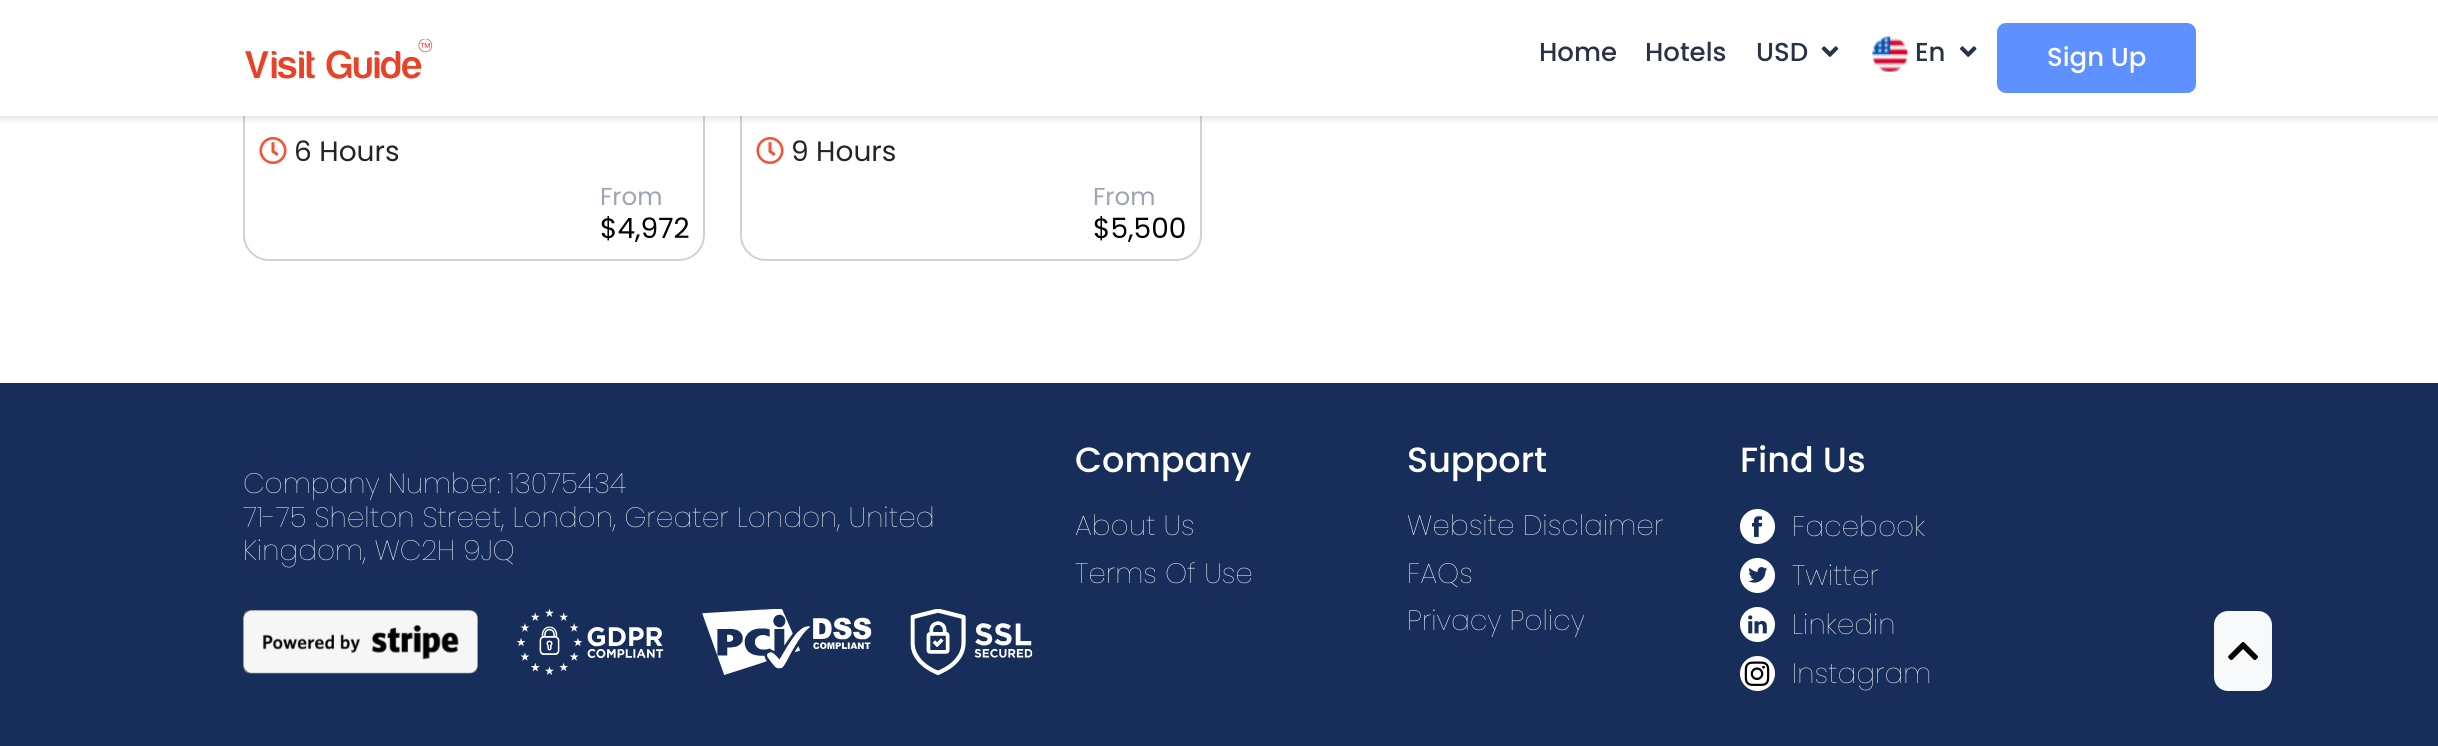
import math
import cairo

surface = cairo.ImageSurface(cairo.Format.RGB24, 2438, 746)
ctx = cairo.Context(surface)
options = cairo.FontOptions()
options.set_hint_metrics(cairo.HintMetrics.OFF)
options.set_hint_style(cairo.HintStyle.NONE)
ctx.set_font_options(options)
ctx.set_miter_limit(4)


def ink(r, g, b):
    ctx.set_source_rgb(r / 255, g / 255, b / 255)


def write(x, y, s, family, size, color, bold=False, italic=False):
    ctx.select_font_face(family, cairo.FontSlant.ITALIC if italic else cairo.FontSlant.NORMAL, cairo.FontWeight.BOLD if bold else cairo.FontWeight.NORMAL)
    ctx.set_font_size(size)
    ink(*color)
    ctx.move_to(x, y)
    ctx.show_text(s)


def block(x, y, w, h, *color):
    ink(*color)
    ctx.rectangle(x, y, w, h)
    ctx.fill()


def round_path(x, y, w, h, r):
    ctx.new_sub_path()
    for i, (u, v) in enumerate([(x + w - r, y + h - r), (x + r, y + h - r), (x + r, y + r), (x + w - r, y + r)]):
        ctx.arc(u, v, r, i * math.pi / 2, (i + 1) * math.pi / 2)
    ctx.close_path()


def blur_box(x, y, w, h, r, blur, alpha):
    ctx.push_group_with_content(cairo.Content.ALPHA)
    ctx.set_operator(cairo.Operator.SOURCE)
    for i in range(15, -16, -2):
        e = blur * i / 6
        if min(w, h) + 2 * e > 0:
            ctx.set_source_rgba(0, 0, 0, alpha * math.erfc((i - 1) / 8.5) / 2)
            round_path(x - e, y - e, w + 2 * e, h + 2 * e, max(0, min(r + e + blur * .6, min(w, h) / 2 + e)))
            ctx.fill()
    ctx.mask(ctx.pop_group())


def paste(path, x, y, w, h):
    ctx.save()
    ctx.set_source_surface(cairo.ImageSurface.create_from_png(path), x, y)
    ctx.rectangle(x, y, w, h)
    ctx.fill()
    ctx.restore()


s1 = dict(family="Poppins Medium", size=26, color=(41, 51, 71))
s2 = dict(family="Poppins Medium", size=26, color=(255, 255, 255))
s3 = dict(family="Poppins", size=28, color=(33, 37, 41))
s4 = dict(family="Poppins", size=24.5, color=(157, 163, 175))
s5 = dict(family="Poppins", size=28, color=(0, 0, 0))
s6 = dict(family="Poppins ExtraLight", size=28, color=(255, 255, 255))
s7 = dict(family="Poppins Medium", size=35, color=(255, 255, 255))

ink(255, 255, 255)
ctx.paint()
round_path(244, -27, 460, 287, 25)
ink(210, 210, 210)
ctx.stroke()
round_path(741, -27, 460, 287, 25)
ctx.stroke()
ink(0, 0, 0)
blur_box(0, 2, 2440, 115, 0, 4.5, 0.16)
block(0, 0, 2438, 116, 255, 255, 255)
paste("pic1.png", 245, 39, 188, 40)
write(1539, 61, "Home", **s1)
write(1645, 61, "Hotels", **s1)
write(1756, 61, "USD", **s1)
paste("pic2.png", 1821, 46, 18, 11)
paste("pic3.png", 1872, 36, 36, 36)
write(1915, 61, "En", **s1)
paste("pic4.png", 1960, 46, 17, 11)
ink(94, 145, 255)
round_path(1997, 23, 199, 70, 9)
ctx.fill()
write(2047, 66, "Sign Up", **s2)
paste("pic5.png", 259, 137, 28, 27)
write(294, 161, "6 Hours", **s3)
write(600, 205, "From", **s4)
write(600, 238, "$4,972", **s5)
paste("pic5.png", 756, 137, 28, 27)
write(791, 161, "9 Hours", **s3)
write(1093, 205, "From", **s4)
write(1093, 238, "$5,500", **s5)
block(0, 383, 2438, 363, 24, 46, 90)
write(243, 493, "Company Number: 13075434", **s6)
write(243, 527, "71-75 Shelton Street, London, Greater London, United", **s6)
write(243, 560, "Kingdom, WC2H 9JQ", **s6)
paste("pic6.png", 243, 609, 790, 66)
write(1075, 472, "Company", **s7)
write(1075, 535, "About Us", **s6)
write(1075, 583, "Terms Of Use", **s6)
write(1407, 472, "Support", **s7)
write(1407, 535, "Website Disclaimer", **s6)
write(1407, 583, "FAQs", **s6)
write(1407, 630, "Privacy Policy", **s6)
write(1740, 472, "Find Us", **s7)
ctx.new_path()
ctx.arc(1757.5, 526.5, 17.5, 0, 2 * math.pi)
ctx.fill()
paste("pic7.png", 1752, 516, 10, 21)
write(1792, 536, "Facebook", **s6)
ctx.new_path()
ctx.arc(1757.5, 575.5, 17.5, 0, 2 * math.pi)
ctx.fill()
paste("pic8.png", 1748, 567, 20, 16)
write(1792, 585, "Twitter", **s6)
ctx.new_path()
ctx.arc(1757.5, 624.5, 17.5, 0, 2 * math.pi)
ctx.fill()
paste("pic9.png", 1748, 615, 19, 19)
write(1792, 634, "Linkedin", **s6)
ctx.new_path()
ctx.arc(1757.5, 673.5, 17.5, 0, 2 * math.pi)
ctx.fill()
paste("pic10.png", 1744, 661, 26, 25)
write(1792, 683, "Instagram", **s6)
ink(248, 249, 250)
round_path(2214, 611, 58, 80, 14)
ctx.fill()
paste("pic11.png", 2228, 642, 30, 18)
surface.write_to_png("screenshot.png")
